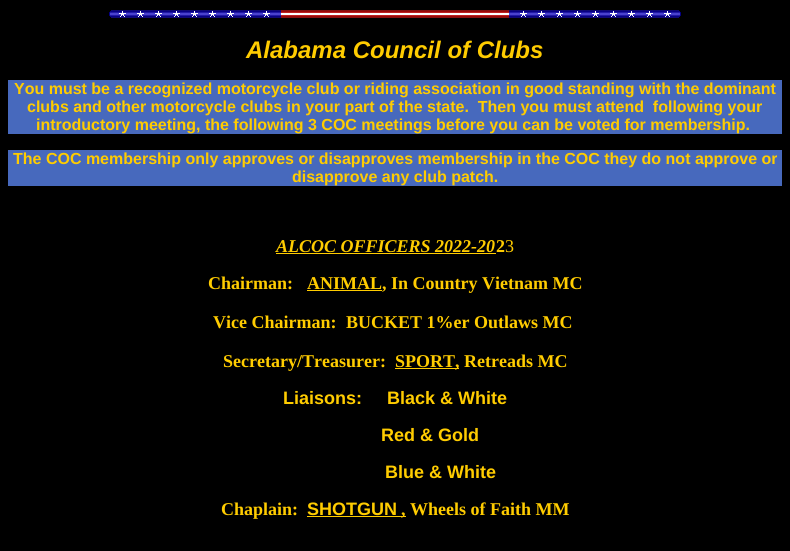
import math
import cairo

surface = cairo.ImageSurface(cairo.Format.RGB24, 790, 551)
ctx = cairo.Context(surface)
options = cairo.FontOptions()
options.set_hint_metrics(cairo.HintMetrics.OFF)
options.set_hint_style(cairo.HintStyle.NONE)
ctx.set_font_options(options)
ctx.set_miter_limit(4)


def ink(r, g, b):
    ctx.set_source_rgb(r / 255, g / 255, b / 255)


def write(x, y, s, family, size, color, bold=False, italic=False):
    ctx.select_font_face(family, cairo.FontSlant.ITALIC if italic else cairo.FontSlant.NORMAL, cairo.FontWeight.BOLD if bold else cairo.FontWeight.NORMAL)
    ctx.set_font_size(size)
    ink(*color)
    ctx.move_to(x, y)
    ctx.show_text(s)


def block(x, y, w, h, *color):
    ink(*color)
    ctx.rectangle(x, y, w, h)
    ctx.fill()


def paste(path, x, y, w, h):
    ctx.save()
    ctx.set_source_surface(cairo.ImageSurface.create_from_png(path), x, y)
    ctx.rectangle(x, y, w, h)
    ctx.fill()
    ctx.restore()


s1 = dict(family="Liberation Sans", size=24, color=(255, 204, 0), bold=True, italic=True)
s2 = dict(family="Liberation Sans", size=16, color=(255, 204, 0), bold=True)
s3 = dict(family="Liberation Serif", size=18, color=(255, 204, 0), bold=True, italic=True)
s4 = dict(family="Liberation Serif", size=18, color=(255, 204, 0), bold=True)
s5 = dict(family="Liberation Serif", size=18, color=(255, 204, 0))
s6 = dict(family="Liberation Sans", size=18, color=(255, 204, 0), bold=True)

ink(0, 0, 0)
ctx.paint()
paste("pic1.png", 109, 10, 572, 8)
write(246, 58, "Alabama Council of Clubs", **s1)
block(8, 80, 774, 54, 71, 105, 189)
write(14, 94, "You must be a recognized motorcycle club or riding association in good standing with the dominant", **s2)
write(27, 112, "clubs and other motorcycle clubs in your part of the state.  Then you must attend  following your", **s2)
write(36, 130, "introductory meeting, the following 3 COC meetings before you can be voted for membership.", **s2)
block(8, 150, 774, 36, 71, 105, 189)
write(13, 164, "The COC membership only approves or disapproves membership in the COC they do not approve or", **s2)
write(292, 182, "disapprove any club patch.", **s2)
write(276, 252, "ALCOC OFFICERS 2022-20", **s3)
block(276, 253, 220, 1, 255, 204, 0)
write(496, 252, "2", **s4)
write(505, 252, "3", **s5)
write(208, 289, "Chairman:", **s4)
block(307, 290, 75, 1, 255, 204, 0)
write(307, 289, "ANIMAL, In Country Vietnam MC", **s4)
write(213, 328, "Vice Chairman:", **s4)
write(346, 328, "BUCKET 1%er Outlaws MC", **s4)
write(223, 367, "Secretary/Treasurer:", **s4)
block(395, 368, 64, 1, 255, 204, 0)
write(395, 367, "SPORT, Retreads MC", **s4)
write(283, 404, "Liaisons:", **s6)
write(387, 404, "Black & White", **s6)
write(381, 441, "Red & Gold", **s6)
write(385, 478, "Blue & White", **s6)
write(221, 515, "Chaplain:", **s4)
write(307, 515, "SHOTGUN", **s6)
block(307, 516, 99, 1, 255, 204, 0)
write(401, 515, ", Wheels of Faith MM", **s4)
surface.write_to_png("screenshot.png")
